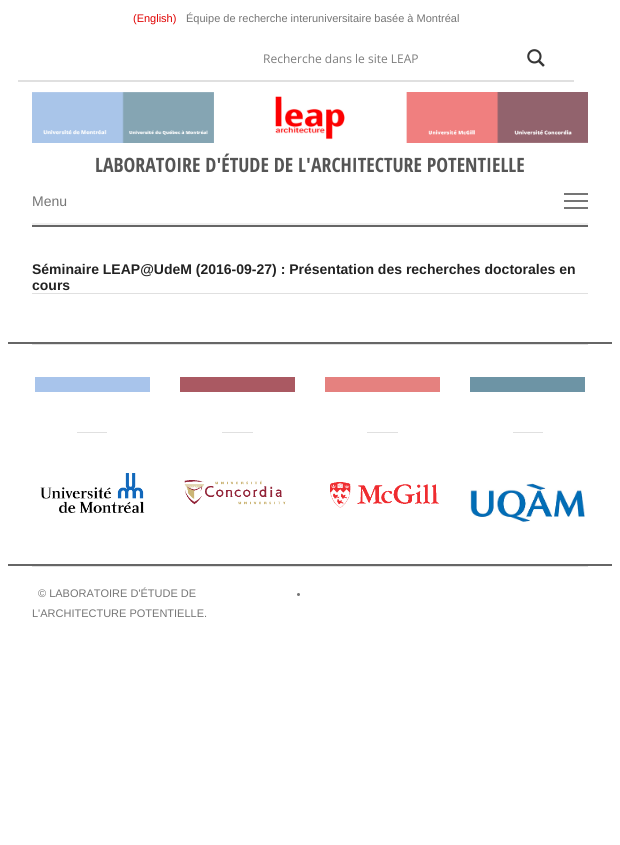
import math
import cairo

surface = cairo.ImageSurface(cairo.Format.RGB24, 620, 845)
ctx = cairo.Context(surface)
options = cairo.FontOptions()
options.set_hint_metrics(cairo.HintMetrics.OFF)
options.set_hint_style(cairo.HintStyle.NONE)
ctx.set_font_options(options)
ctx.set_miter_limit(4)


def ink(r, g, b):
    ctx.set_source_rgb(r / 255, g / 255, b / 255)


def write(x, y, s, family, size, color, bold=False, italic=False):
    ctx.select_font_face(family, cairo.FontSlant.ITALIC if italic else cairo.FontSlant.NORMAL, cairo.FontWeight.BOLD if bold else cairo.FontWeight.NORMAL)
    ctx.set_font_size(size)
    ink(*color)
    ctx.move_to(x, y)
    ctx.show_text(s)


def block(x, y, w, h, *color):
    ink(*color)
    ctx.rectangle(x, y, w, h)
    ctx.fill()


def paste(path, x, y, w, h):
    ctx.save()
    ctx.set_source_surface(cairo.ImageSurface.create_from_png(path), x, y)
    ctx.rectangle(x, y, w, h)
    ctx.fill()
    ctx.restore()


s1 = dict(family="Liberation Sans", size=11, color=(224, 0, 0))
s2 = dict(family="Liberation Sans", size=11, color=(117, 117, 117))
s3 = dict(family="Open Sans", size=12, color=(125, 125, 125))
s4 = dict(family="Open Sans Condensed", size=19.8, color=(85, 85, 85), bold=True)
s5 = dict(family="Liberation Sans", size=14, color=(117, 117, 117))
s6 = dict(family="Liberation Sans", size=14, color=(34, 34, 34), bold=True)

ink(255, 255, 255)
ctx.paint()
block(18, 80, 556, 2, 224, 224, 224)
write(133, 22, "(English)", **s1)
write(186, 22, "Équipe de recherche interuniversitaire basée à Montréal", **s2)
write(263, 63, "Recherche dans le site LEAP", **s3)
paste("pic1.png", 527, 49, 18, 18)
paste("pic2.png", 32, 92, 556, 51)
write(95, 172, "LABORATOIRE D'ÉTUDE DE L'ARCHITECTURE POTENTIELLE", **s4)
block(32, 223, 556, 2, 240, 240, 240)
write(32, 206, "Menu", **s5)
block(564, 193, 24, 2, 117, 117, 117)
block(564, 200, 24, 2, 117, 117, 117)
block(564, 207, 24, 2, 117, 117, 117)
block(32, 225, 556, 2, 102, 102, 102)
block(32, 293, 556, 1, 224, 224, 224)
write(32, 274, "Séminaire LEAP@UdeM (2016-09-27) : Présentation des recherches doctorales en", **s6)
write(32, 290, "cours", **s6)
block(8, 342, 604, 2, 102, 102, 102)
block(8, 564, 604, 2, 102, 102, 102)
block(32, 344, 556, 1, 224, 224, 224)
block(35, 377, 115, 15, 168, 196, 235)
block(77, 432, 30, 1, 224, 224, 224)
paste("pic3.png", 40, 473, 105, 40)
block(180, 377, 115, 15, 170, 89, 98)
block(222, 432, 31, 1, 224, 224, 224)
paste("pic4.png", 184, 480, 102, 25)
block(325, 377, 115, 15, 229, 129, 127)
block(367, 432, 31, 1, 224, 224, 224)
paste("pic5.png", 330, 482, 109, 26)
block(470, 377, 115, 15, 109, 148, 165)
block(513, 432, 30, 1, 224, 224, 224)
paste("pic6.png", 470, 483, 115, 39)
block(32, 566, 556, 1, 224, 224, 224)
write(38, 597, "© LABORATOIRE D'ÉTUDE DE", **s2)
ctx.new_path()
ctx.arc(298.5, 594.5, 1.5, 0, 2 * math.pi)
ctx.fill()
write(32, 617, "L'ARCHITECTURE POTENTIELLE.", **s2)
surface.write_to_png("screenshot.png")
